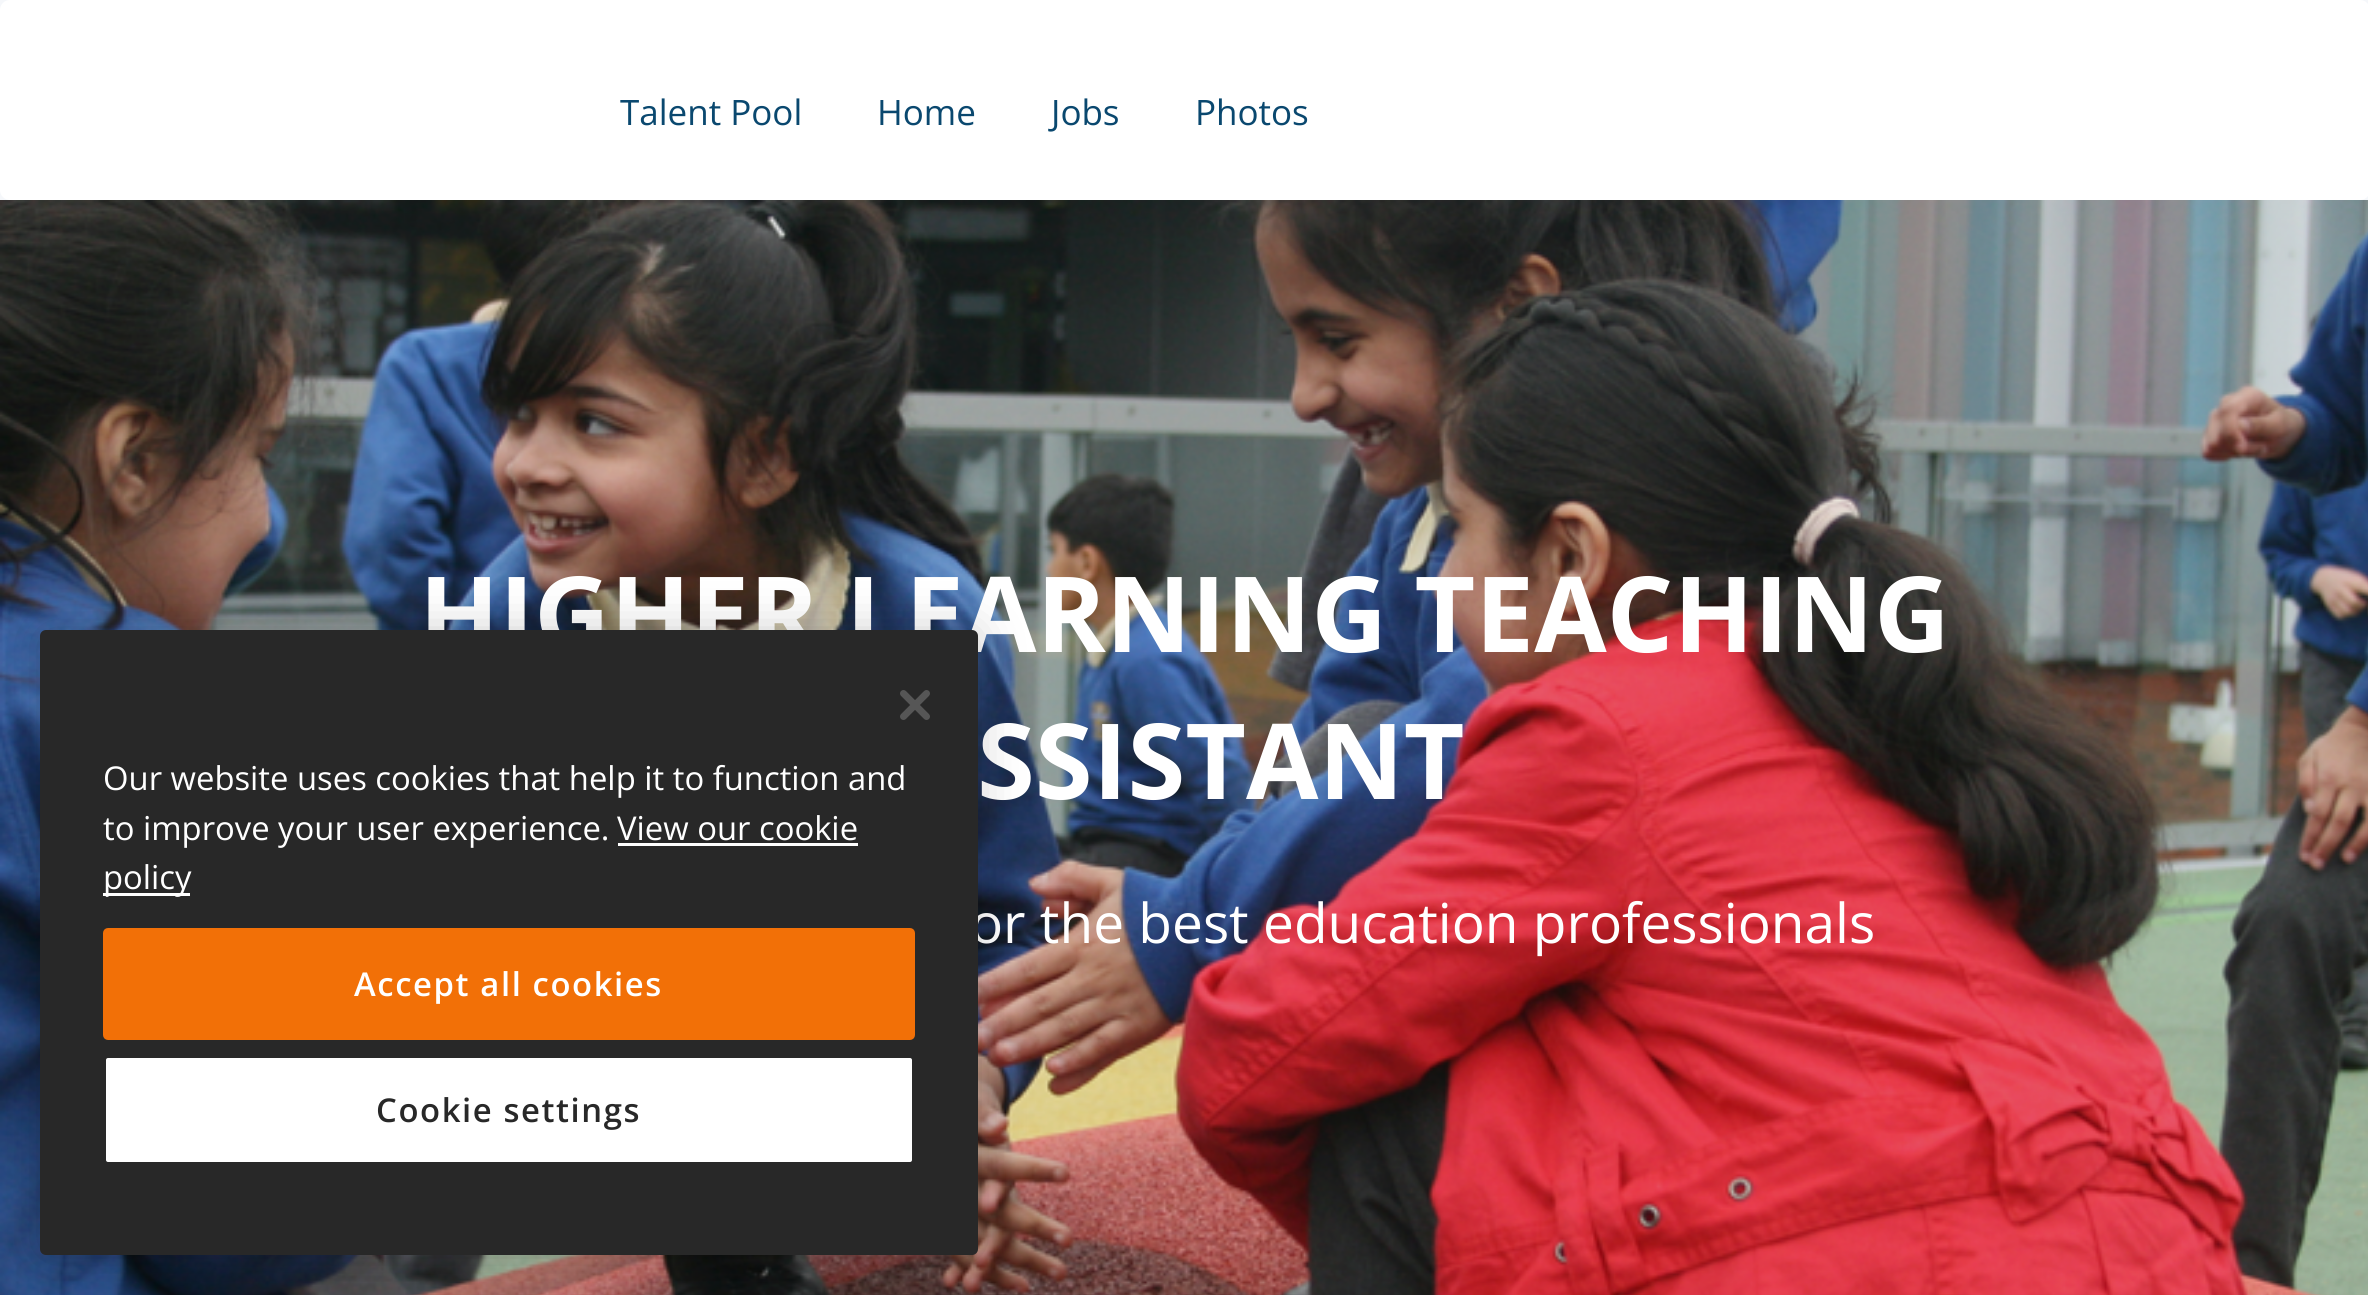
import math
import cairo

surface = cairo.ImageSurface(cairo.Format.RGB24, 2368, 1295)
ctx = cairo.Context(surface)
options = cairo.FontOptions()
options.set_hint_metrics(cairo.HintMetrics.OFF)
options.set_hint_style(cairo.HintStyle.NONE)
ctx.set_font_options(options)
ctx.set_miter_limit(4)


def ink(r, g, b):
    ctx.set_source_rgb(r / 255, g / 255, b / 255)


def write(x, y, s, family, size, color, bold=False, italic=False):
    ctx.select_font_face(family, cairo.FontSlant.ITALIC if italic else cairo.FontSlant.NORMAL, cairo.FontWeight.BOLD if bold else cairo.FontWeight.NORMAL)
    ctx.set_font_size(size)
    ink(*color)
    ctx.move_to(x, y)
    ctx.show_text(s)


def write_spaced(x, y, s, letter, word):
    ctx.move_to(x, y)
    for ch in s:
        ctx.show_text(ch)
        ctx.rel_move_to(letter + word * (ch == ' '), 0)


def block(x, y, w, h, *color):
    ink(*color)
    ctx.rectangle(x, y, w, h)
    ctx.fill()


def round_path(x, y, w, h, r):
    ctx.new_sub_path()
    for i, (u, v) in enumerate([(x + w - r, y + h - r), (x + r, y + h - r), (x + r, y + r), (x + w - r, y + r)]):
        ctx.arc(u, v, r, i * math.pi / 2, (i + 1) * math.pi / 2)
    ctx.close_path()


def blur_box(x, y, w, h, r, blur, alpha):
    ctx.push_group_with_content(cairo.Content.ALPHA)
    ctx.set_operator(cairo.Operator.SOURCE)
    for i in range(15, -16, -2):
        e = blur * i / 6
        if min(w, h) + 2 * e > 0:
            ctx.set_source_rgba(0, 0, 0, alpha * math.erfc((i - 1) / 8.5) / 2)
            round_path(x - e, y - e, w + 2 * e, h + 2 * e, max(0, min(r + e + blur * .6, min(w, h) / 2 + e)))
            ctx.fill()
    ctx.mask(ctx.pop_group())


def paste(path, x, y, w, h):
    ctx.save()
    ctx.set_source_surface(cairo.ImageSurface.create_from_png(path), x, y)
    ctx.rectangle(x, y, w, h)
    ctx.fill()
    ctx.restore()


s1 = dict(family="Open Sans", size=35, color=(10, 72, 111))
s2 = dict(family="Open Sans", size=105, color=(255, 255, 255), bold=True)
s3 = dict(family="Open Sans", size=55, color=(255, 255, 255))
s4 = dict(family="Open Sans", size=32.8, color=(255, 255, 255))

ink(245, 247, 250)
ctx.paint()
ink(255, 255, 255)
round_path(0, 0, 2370, 200, 10)
ctx.fill()
write(620, 125, "Talent Pool", **s1)
write(877, 125, "Home", **s1)
write(1051, 125, "Jobs", **s1)
write(1195, 125, "Photos", **s1)
paste("pic1.png", 0, 200, 2368, 1095)
write(419, 652, "HIGHER LEARNING TEACHING", **s2)
write(977, 799, "SSISTANT", **s2)
write(970, 943, "or the best education professionals", **s3)
ink(0, 0, 0)
blur_box(40, 630, 938, 625, 6, 22.5, 0.2)
ink(40, 40, 40)
round_path(40, 630, 938, 625, 6)
ctx.fill()
paste("pic2.png", 900, 690, 30, 30)
write(103, 790, "Our website uses cookies that help it to function and", **s4)
write(103, 840, "to improve your user experience.", **s4)
write(617, 840, "View our cookie", **s4)
block(618, 843, 240, 3, 255, 255, 255)
block(103, 893, 87, 3, 255, 255, 255)
write(103, 889, "policy", **s4)
ink(242, 112, 7)
round_path(104.5, 929.5, 809, 109, 3.5)
ctx.fill_preserve()
ctx.set_line_width(3)
ctx.stroke()
ctx.select_font_face("Open Sans SemiBold")
ink(255, 255, 255)
write_spaced(354, 996, "Accept all cookies", 1.6, 0)
round_path(104.5, 1056.5, 809, 107, 3.5)
ctx.fill_preserve()
ink(40, 40, 40)
ctx.stroke()
write_spaced(376, 1122, "Cookie settings", 1.6, 0)
surface.write_to_png("screenshot.png")
